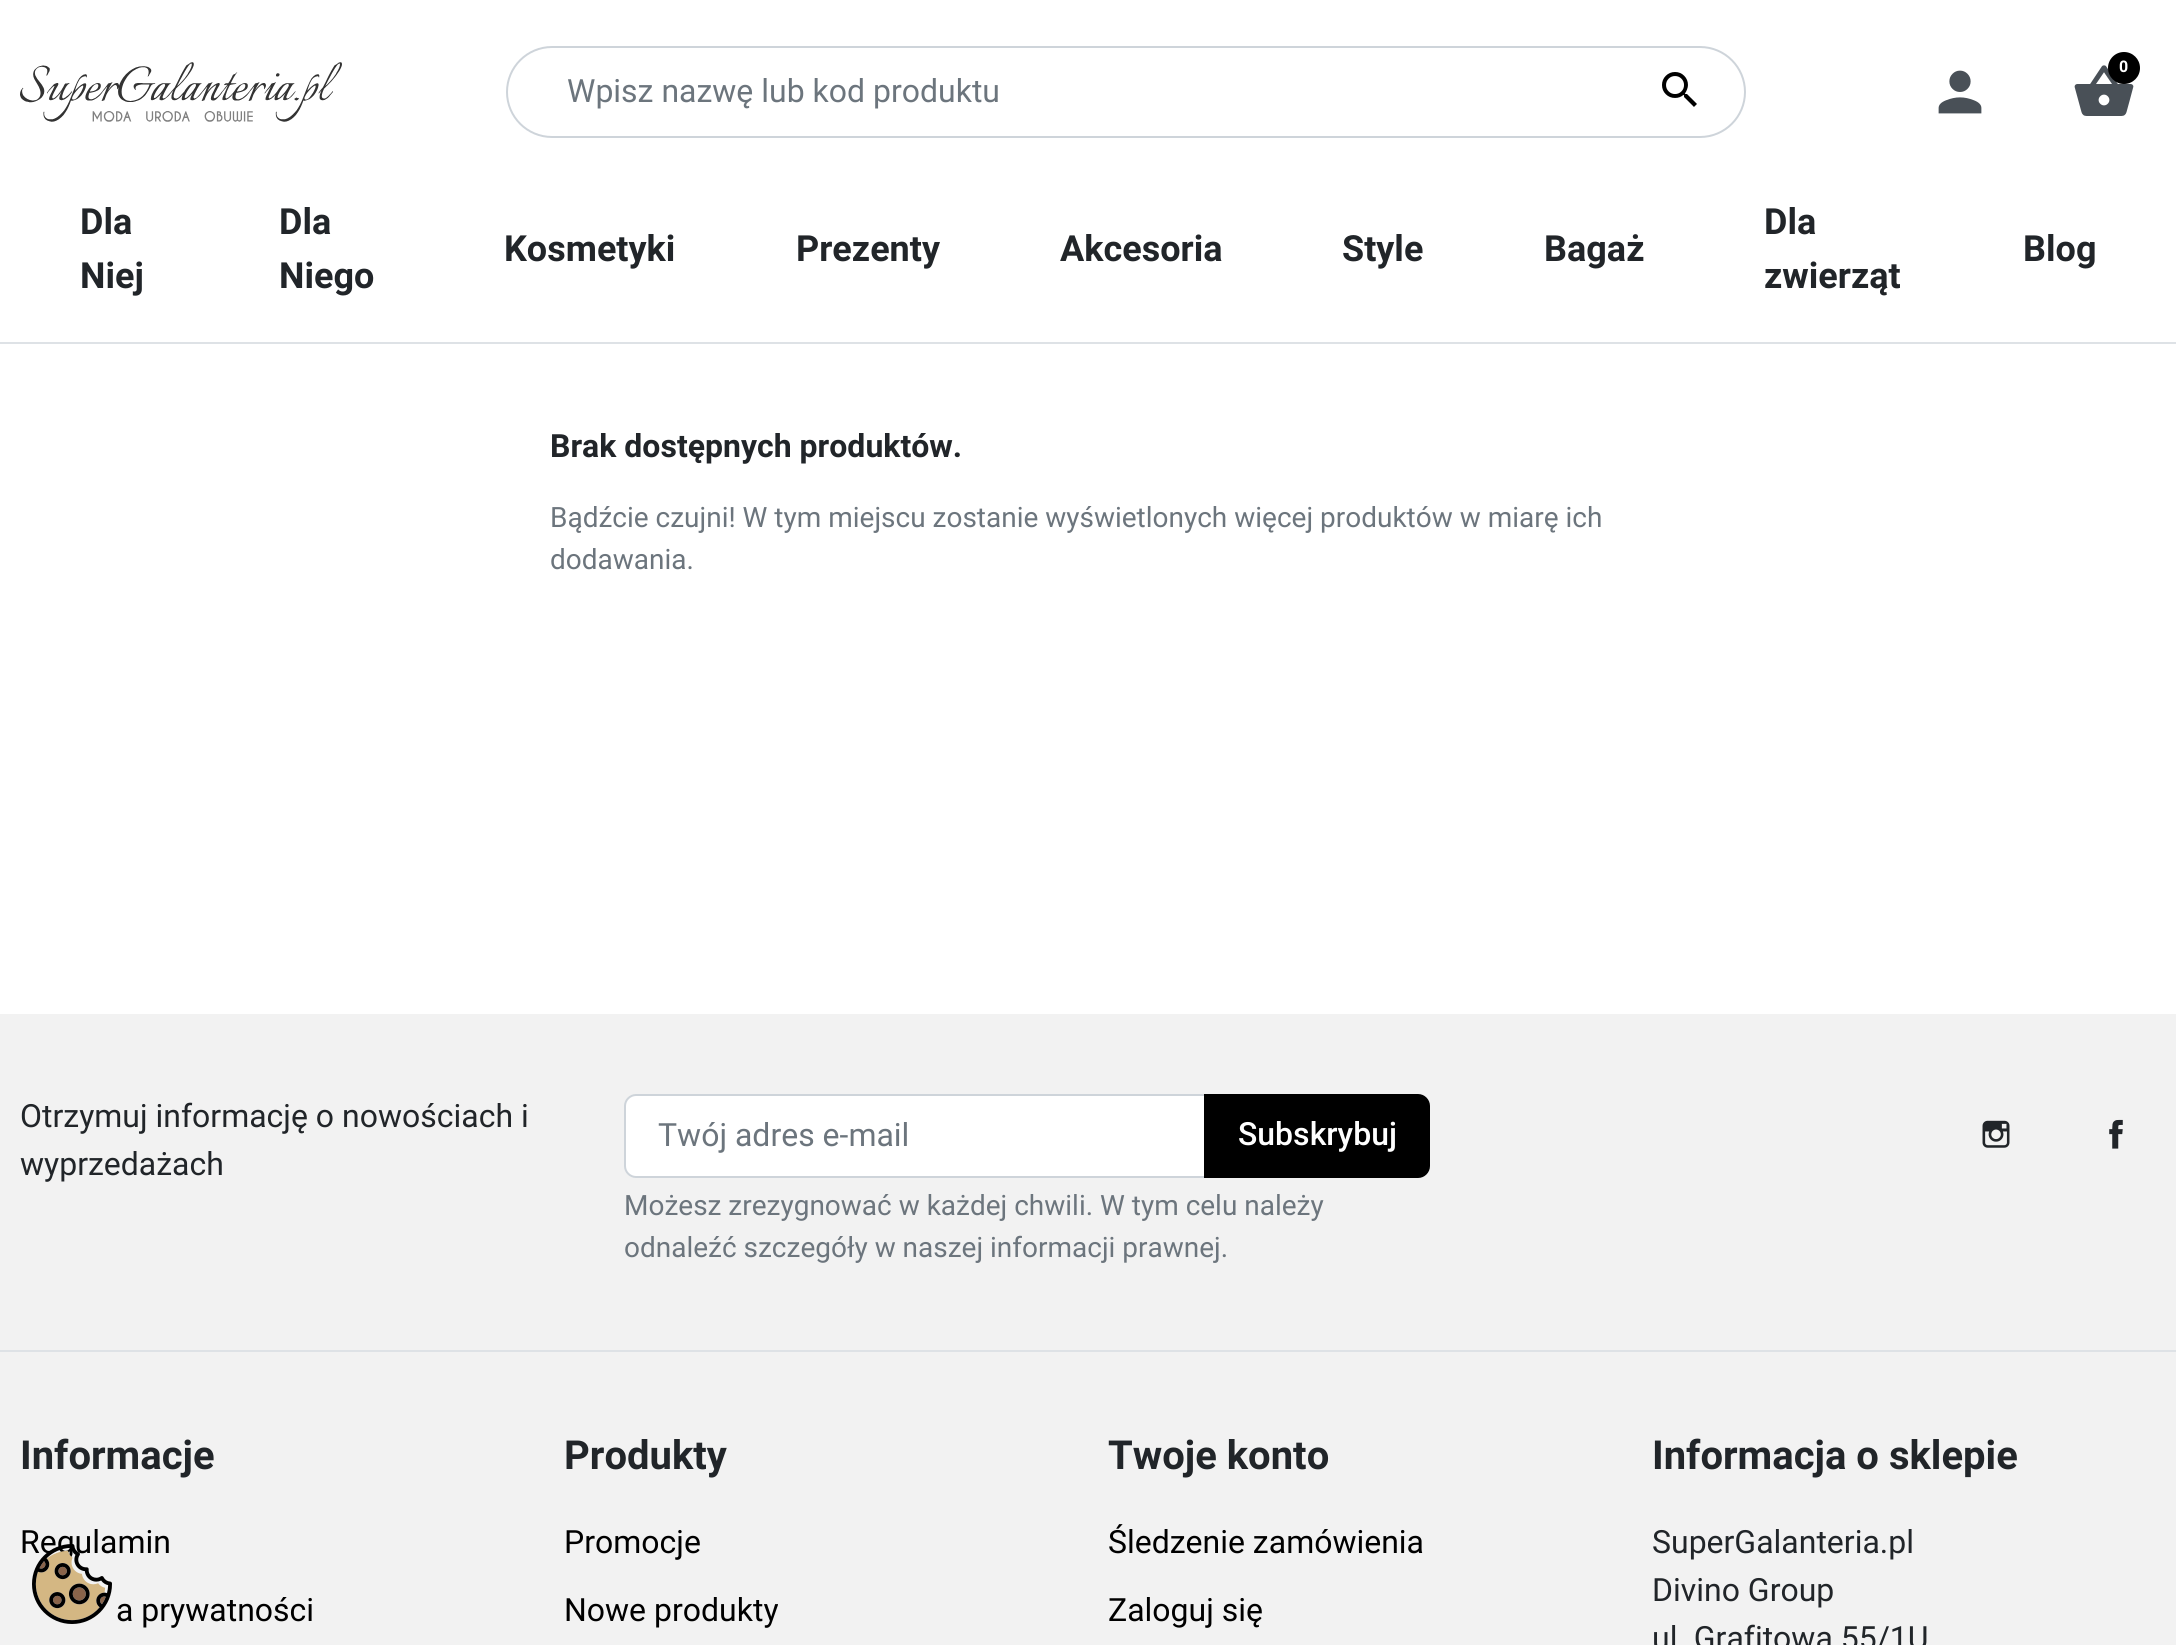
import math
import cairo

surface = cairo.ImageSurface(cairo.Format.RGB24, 2176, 1645)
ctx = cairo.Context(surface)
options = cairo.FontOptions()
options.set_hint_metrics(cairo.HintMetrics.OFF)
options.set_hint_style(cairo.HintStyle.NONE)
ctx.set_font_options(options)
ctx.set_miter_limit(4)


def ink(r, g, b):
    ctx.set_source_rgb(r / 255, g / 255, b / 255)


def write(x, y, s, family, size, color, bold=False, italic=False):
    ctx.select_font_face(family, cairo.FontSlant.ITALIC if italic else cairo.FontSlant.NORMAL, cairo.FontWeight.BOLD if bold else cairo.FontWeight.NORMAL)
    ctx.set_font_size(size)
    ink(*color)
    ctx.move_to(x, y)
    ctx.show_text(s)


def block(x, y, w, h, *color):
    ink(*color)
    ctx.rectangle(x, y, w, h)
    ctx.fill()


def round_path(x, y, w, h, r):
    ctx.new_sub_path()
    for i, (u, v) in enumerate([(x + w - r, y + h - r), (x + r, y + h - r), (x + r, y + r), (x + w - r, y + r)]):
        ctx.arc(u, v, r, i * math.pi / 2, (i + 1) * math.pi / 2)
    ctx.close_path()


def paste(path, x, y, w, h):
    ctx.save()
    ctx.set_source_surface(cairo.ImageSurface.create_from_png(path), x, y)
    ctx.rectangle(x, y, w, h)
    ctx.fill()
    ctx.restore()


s1 = dict(family="Roboto", size=32, color=(108, 117, 125))
s2 = dict(family="Roboto", size=16, color=(255, 255, 255), bold=True)
s3 = dict(family="Roboto", size=36, color=(33, 37, 41), bold=True)
s4 = dict(family="Roboto", size=32, color=(33, 37, 41), bold=True)
s5 = dict(family="Roboto", size=28, color=(108, 117, 125))
s6 = dict(family="Roboto", size=32, color=(33, 37, 41))
s7 = dict(family="Roboto Medium", size=32, color=(255, 255, 255))
s8 = dict(family="Roboto", size=40, color=(33, 37, 41), bold=True)
s9 = dict(family="Roboto", size=32, color=(0, 0, 0))

ink(255, 255, 255)
ctx.paint()
block(0, 342, 2176, 2, 222, 226, 230)
paste("pic1.png", 20, 62, 322, 60)
round_path(507, 47, 1238, 90, 45)
ink(206, 212, 218)
ctx.stroke()
write(567, 102, "Wpisz nazwę lub kod produktu", **s1)
paste("pic2.png", 1662, 72, 35, 35)
paste("pic3.png", 1938, 70, 44, 44)
paste("pic4.png", 2074, 65, 60, 51)
ink(0, 0, 0)
ctx.arc(2124, 68, 16, 0, 2 * math.pi)
ctx.fill()
write(2119, 72, "0", **s2)
write(80, 234, "Dla", **s3)
write(80, 288, "Niej", **s3)
write(279, 234, "Dla", **s3)
write(279, 288, "Niego", **s3)
write(504, 261, "Kosmetyki", **s3)
write(796, 261, "Prezenty", **s3)
write(1060, 261, "Akcesoria", **s3)
write(1342, 261, "Style", **s3)
write(1544, 261, "Bagaż", **s3)
write(1764, 234, "Dla", **s3)
write(1764, 288, "zwierząt", **s3)
write(2023, 261, "Blog", **s3)
write(550, 457, "Brak dostępnych produktów.", **s4)
write(550, 527, "Bądźcie czujni! W tym miejscu zostanie wyświetlonych więcej produktów w miarę ich", **s5)
write(550, 569, "dodawania.", **s5)
block(0, 1014, 2176, 631, 242, 242, 242)
block(0, 1350, 2176, 2, 222, 226, 230)
write(20, 1127, "Otrzymuj informację o nowościach i", **s6)
write(20, 1175, "wyprzedażach", **s6)
ink(255, 255, 255)
ctx.new_path()
ctx.move_to(636, 1095)
ctx.line_to(1205, 1095)
ctx.line_to(1205, 1177)
ctx.line_to(636, 1177)
ctx.curve_to(630, 1177, 625, 1172, 625, 1166)
ctx.line_to(625, 1106)
ctx.curve_to(625, 1100, 630, 1095, 636, 1095)
ctx.close_path()
ctx.fill_preserve()
ink(206, 212, 218)
ctx.stroke()
write(658, 1146, "Twój adres e-mail", **s1)
ink(0, 0, 0)
ctx.new_path()
ctx.move_to(1205, 1095)
ctx.line_to(1418, 1095)
ctx.curve_to(1424, 1095, 1429, 1100, 1429, 1106)
ctx.line_to(1429, 1166)
ctx.curve_to(1429, 1172, 1424, 1177, 1418, 1177)
ctx.line_to(1205, 1177)
ctx.close_path()
ctx.fill_preserve()
ctx.stroke()
write(1238, 1145, "Subskrybuj", **s7)
write(624, 1215, "Możesz zrezygnować w każdej chwili. W tym celu należy", **s5)
write(624, 1257, "odnaleźć szczegóły w naszej informacji prawnej.", **s5)
paste("pic5.png", 1982, 1120, 28, 28)
paste("pic6.png", 2109, 1119, 14, 30)
write(20, 1469, "Informacje", **s8)
write(20, 1553, "Regulamin", **s9)
write(116, 1621, "a prywatności", **s9)
write(564, 1469, "Produkty", **s8)
write(564, 1553, "Promocje", **s9)
write(564, 1621, "Nowe produkty", **s9)
write(1108, 1469, "Twoje konto", **s8)
write(1108, 1553, "Śledzenie zamówienia", **s9)
write(1108, 1621, "Zaloguj się", **s9)
write(1652, 1469, "Informacja o sklepie", **s8)
write(1652, 1553, "SuperGalanteria.pl", **s6)
write(1652, 1601, "Divino Group", **s6)
write(1652, 1649, "ul. Grafitowa 55/1U", **s6)
paste("pic7.png", 32, 1544, 80, 80)
surface.write_to_png("screenshot.png")
